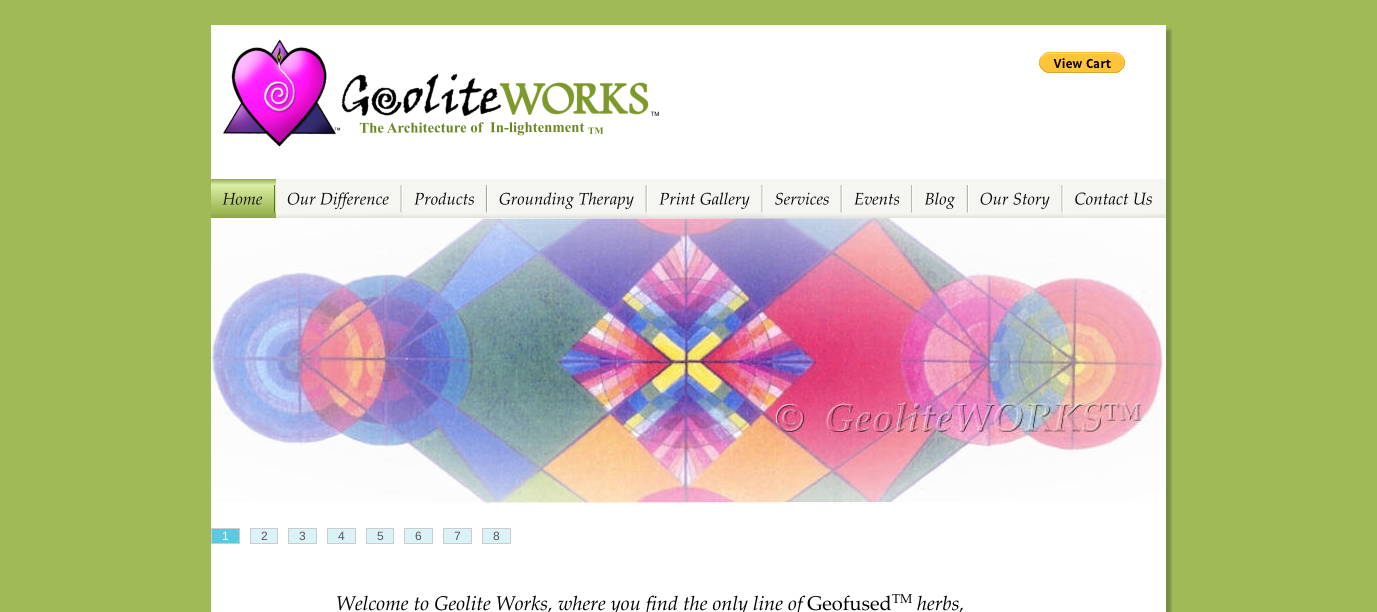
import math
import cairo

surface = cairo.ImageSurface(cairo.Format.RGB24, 1377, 612)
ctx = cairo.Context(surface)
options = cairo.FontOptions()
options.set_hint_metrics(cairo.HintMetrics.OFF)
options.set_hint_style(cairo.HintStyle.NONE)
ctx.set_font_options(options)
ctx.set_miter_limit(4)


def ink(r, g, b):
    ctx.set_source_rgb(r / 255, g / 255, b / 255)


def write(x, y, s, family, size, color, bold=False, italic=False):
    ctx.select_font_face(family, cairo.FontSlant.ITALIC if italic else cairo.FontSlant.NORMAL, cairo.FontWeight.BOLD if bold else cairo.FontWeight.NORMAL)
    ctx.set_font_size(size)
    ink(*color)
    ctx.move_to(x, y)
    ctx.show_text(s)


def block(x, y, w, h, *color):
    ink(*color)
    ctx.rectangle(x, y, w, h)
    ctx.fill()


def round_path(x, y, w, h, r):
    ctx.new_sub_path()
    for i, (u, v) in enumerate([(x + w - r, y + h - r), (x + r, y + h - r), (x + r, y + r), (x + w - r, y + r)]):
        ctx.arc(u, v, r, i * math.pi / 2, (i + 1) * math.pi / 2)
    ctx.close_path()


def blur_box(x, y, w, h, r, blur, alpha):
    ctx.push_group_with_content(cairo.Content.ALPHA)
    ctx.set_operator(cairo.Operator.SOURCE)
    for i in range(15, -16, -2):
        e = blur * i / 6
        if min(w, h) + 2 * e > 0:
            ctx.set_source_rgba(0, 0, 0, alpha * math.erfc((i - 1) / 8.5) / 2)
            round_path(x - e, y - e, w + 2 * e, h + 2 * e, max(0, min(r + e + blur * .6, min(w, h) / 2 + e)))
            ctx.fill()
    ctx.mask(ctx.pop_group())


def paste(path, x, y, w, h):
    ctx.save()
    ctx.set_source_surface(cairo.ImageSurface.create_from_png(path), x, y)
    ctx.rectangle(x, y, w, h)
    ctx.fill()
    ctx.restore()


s1 = dict(family="Liberation Sans", size=12, color=(255, 255, 255))
s2 = dict(family="Liberation Sans", size=12, color=(85, 85, 85))
s3 = dict(family="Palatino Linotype", size=20, color=(0, 0, 0), italic=True)
s4 = dict(family="Palatino Linotype", size=20, color=(0, 0, 0))
s5 = dict(family="Palatino Linotype", size=13, color=(0, 0, 0))

ink(160, 186, 87)
ctx.paint()
ink(0, 0, 0)
blur_box(216, 30, 955, 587, 0, 1.5, 0.25)
block(211, 25, 955, 587, 255, 255, 255)
paste("pic2.png", 276, 179, 127, 39)
paste("pic1.png", 211, 179, 66, 39)
paste("pic3.png", 403, 179, 85, 39)
paste("pic4.png", 488, 179, 160, 39)
paste("pic5.png", 648, 179, 116, 39)
paste("pic6.png", 764, 179, 79, 39)
paste("pic7.png", 843, 179, 70, 39)
paste("pic8.png", 913, 179, 56, 39)
paste("pic9.png", 969, 179, 95, 39)
paste("pic10.png", 1064, 179, 102, 39)
paste("pic11.png", 223, 39, 436, 108)
paste("pic12.png", 1039, 52, 86, 21)
paste("pic13.png", 211, 218, 954, 288)
ink(93, 201, 225)
ctx.rectangle(211.5, 528.5, 28, 15)
ctx.fill_preserve()
ink(204, 204, 204)
ctx.set_line_width(1)
ctx.stroke()
write(222, 540, "1", **s1)
ink(218, 243, 248)
ctx.rectangle(250.5, 528.5, 27, 15)
ctx.fill_preserve()
ink(204, 204, 204)
ctx.stroke()
write(261, 540, "2", **s2)
ink(218, 243, 248)
ctx.rectangle(288.5, 528.5, 28, 15)
ctx.fill_preserve()
ink(204, 204, 204)
ctx.stroke()
write(299, 540, "3", **s2)
ink(218, 243, 248)
ctx.rectangle(327.5, 528.5, 28, 15)
ctx.fill_preserve()
ink(204, 204, 204)
ctx.stroke()
write(338, 540, "4", **s2)
ink(218, 243, 248)
ctx.rectangle(366.5, 528.5, 27, 15)
ctx.fill_preserve()
ink(204, 204, 204)
ctx.stroke()
write(377, 540, "5", **s2)
ink(218, 243, 248)
ctx.rectangle(404.5, 528.5, 28, 15)
ctx.fill_preserve()
ink(204, 204, 204)
ctx.stroke()
write(415, 540, "6", **s2)
ink(218, 243, 248)
ctx.rectangle(443.5, 528.5, 28, 15)
ctx.fill_preserve()
ink(204, 204, 204)
ctx.stroke()
write(454, 540, "7", **s2)
ink(218, 243, 248)
ctx.rectangle(482.5, 528.5, 28, 15)
ctx.fill_preserve()
ink(204, 204, 204)
ctx.stroke()
write(493, 540, "8", **s2)
write(336, 610, "Welcome to Geolite Works, where you find the only line of", **s3)
write(807, 610, "Geofused", **s4)
write(892, 603, "TM", **s5)
write(917, 610, "herbs,", **s3)
surface.write_to_png("screenshot.png")
